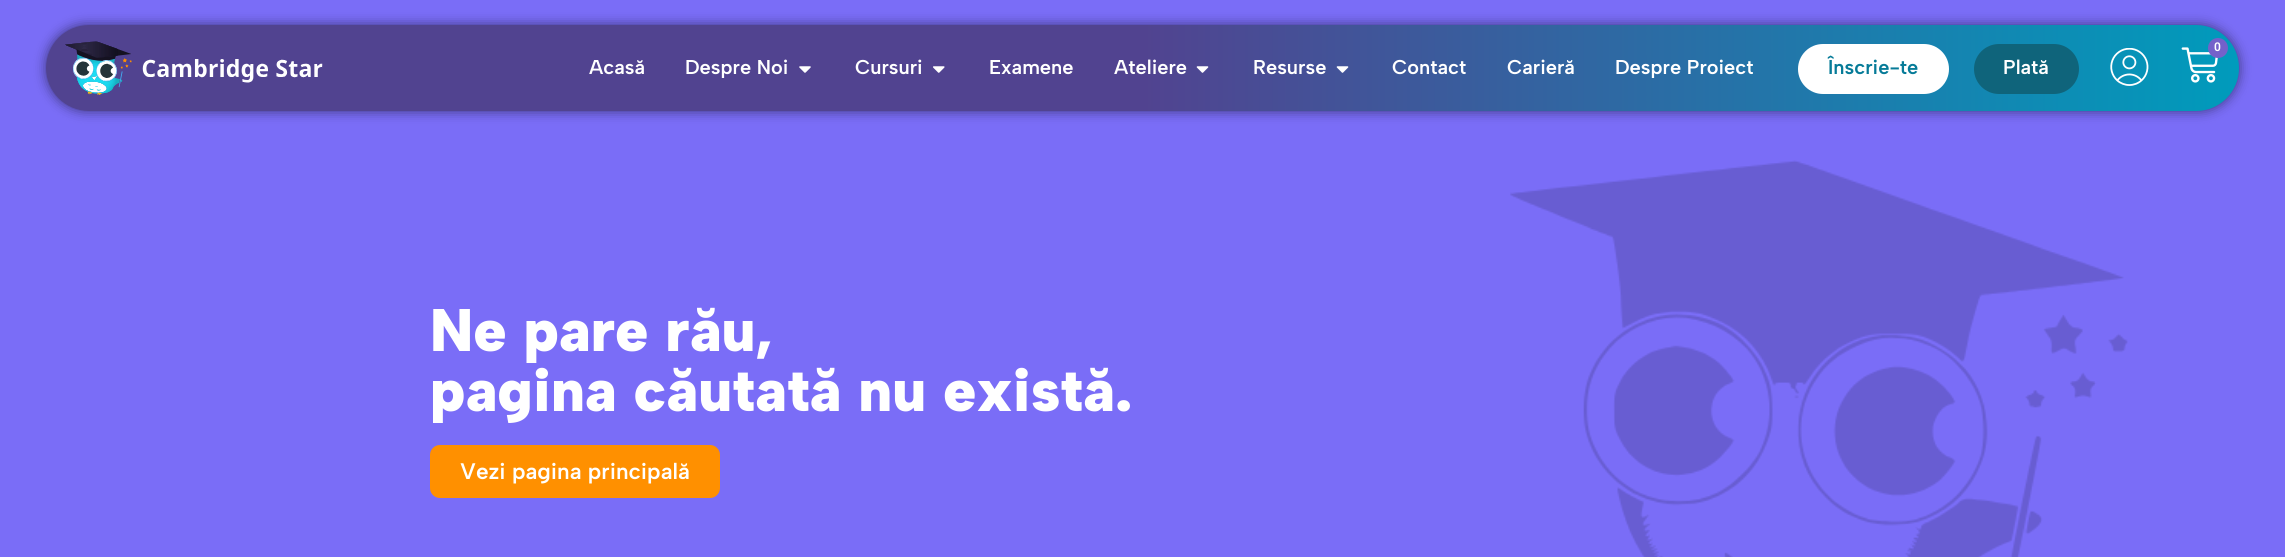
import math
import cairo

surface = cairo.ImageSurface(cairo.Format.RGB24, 2285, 557)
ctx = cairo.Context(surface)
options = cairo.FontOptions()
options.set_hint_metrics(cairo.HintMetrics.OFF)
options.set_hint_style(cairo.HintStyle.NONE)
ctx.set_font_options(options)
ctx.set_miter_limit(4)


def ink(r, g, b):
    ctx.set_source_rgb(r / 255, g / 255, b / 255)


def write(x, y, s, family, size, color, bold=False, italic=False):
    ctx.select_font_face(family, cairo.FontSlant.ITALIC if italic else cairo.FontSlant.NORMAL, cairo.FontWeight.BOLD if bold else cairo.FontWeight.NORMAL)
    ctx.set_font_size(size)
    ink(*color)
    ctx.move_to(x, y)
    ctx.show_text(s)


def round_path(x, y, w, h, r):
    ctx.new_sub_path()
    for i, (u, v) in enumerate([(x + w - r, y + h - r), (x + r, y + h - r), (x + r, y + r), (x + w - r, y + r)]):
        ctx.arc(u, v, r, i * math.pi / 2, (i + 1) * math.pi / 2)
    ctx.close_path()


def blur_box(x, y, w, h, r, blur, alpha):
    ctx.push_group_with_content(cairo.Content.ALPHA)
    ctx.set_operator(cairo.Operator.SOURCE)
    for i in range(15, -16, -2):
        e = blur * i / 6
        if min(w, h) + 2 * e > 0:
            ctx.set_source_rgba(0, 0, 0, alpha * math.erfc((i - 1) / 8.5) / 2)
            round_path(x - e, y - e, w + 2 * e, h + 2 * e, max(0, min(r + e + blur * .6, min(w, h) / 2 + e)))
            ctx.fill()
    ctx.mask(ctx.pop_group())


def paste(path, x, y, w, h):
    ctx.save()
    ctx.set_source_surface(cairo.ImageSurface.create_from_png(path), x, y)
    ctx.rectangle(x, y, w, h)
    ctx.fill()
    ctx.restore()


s1 = dict(family="Roboto SemiBold", size=12, color=(255, 255, 255))
s2 = dict(family="Albert Sans SemiBold", size=20, color=(255, 255, 255))
s3 = dict(family="Albert Sans SemiBold", size=20, color=(6, 123, 152))
s4 = dict(family="Albert Sans Black", size=60, color=(255, 255, 255))
s5 = dict(family="Albert Sans SemiBold", size=22.5, color=(255, 255, 255))

ink(122, 109, 247)
ctx.paint()
ink(0, 0, 0)
blur_box(46, 25, 2193, 86, 43, 6, 0.5)
gradient = cairo.LinearGradient(46, 68, 2239, 68)
gradient.add_color_stop_rgba(0.5, 0.318, 0.263, 0.565, 1)
gradient.add_color_stop_rgba(1, 0, 0.608, 0.737, 1)
ctx.set_source(gradient)
round_path(46, 25, 2193, 86, 43)
ctx.fill()
paste("pic1.png", 65, 41, 258, 54)
paste("pic2.png", 2181, 47, 37, 36)
ink(116, 97, 202)
ctx.arc(2218, 48, 10, 0, 2 * math.pi)
ctx.fill()
write(2214, 51, "0", **s1)
write(589, 74, "Acasă", **s2)
write(685, 74, "Despre Noi", **s2)
paste("pic3.png", 799, 66, 12, 7)
write(855, 74, "Cursuri", **s2)
paste("pic4.png", 933, 66, 12, 7)
write(989, 74, "Examene", **s2)
write(1114, 74, "Ateliere", **s2)
paste("pic5.png", 1196, 66, 13, 7)
write(1253, 74, "Resurse", **s2)
paste("pic6.png", 1336, 66, 13, 7)
write(1392, 74, "Contact", **s2)
write(1507, 74, "Carieră", **s2)
write(1615, 74, "Despre Proiect", **s2)
round_path(1798, 44, 151, 50, 25)
ctx.fill()
write(1828, 74, "Înscrie-te", **s3)
ink(15, 100, 123)
round_path(1974, 44, 105, 50, 25)
ctx.fill()
write(2003, 74, "Plată", **s2)
paste("pic7.png", 2110, 48, 39, 38)
paste("pic8.png", 1510, 160, 618, 397)
write(430, 351, "Ne pare rău,", **s4)
write(430, 411, "pagina căutată nu există.", **s4)
ink(255, 144, 0)
round_path(430, 445, 290, 53, 10)
ctx.fill()
write(460, 479, "Vezi pagina principală", **s5)
surface.write_to_png("screenshot.png")
